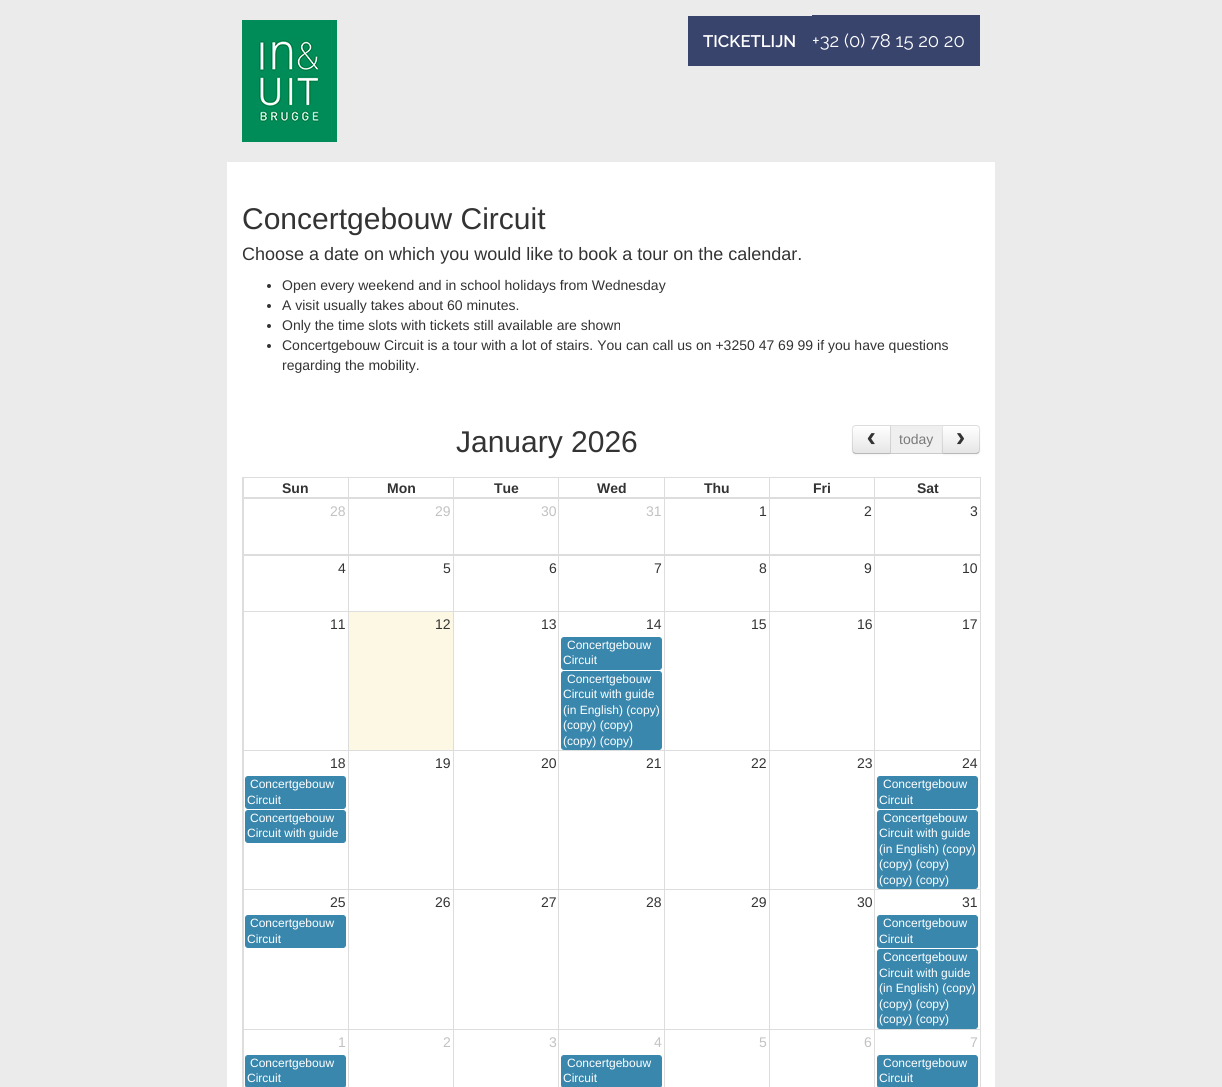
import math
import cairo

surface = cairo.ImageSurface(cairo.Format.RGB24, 1222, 1087)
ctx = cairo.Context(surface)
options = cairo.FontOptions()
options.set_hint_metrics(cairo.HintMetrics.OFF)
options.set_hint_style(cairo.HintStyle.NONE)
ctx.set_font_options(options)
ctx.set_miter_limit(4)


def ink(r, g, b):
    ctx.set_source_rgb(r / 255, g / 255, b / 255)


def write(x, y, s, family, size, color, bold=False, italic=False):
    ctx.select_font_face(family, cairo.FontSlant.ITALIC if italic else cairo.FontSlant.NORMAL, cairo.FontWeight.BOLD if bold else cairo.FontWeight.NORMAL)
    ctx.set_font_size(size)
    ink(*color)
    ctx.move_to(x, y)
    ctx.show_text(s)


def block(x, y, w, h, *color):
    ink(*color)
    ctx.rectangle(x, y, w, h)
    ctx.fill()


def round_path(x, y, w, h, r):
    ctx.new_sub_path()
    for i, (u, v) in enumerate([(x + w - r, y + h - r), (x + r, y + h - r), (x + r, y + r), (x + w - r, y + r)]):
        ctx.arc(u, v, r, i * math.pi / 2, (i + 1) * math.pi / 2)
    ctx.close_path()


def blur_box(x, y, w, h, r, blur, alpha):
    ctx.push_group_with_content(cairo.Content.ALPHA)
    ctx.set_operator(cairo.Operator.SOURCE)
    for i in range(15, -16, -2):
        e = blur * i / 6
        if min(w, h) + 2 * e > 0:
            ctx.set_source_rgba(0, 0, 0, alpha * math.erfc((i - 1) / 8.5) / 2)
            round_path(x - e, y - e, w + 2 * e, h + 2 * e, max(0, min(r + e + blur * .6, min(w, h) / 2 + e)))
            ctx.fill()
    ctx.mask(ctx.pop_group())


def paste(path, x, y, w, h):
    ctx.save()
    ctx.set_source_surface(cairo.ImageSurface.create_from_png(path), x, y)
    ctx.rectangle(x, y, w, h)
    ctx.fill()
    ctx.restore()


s1 = dict(family="Raleway SemiBold", size=16.75, color=(255, 255, 255))
s2 = dict(family="Raleway", size=18.5, color=(255, 255, 255))
s3 = dict(family="Liberation Sans", size=30, color=(51, 51, 51))
s4 = dict(family="Liberation Sans", size=18, color=(51, 51, 51))
s5 = dict(family="Liberation Sans", size=14, color=(51, 51, 51))
s6 = dict(family="Liberation Mono", size=28, color=(51, 51, 51), bold=True)
s7 = dict(family="Liberation Sans", size=14, color=(122, 122, 122))
s8 = dict(family="Liberation Sans", size=14, color=(51, 51, 51), bold=True)
s9 = dict(family="Liberation Sans", size=14, color=(194, 194, 194))
s10 = dict(family="Liberation Sans", size=12, color=(255, 255, 255))

ink(235, 235, 235)
ctx.paint()
paste("pic1.png", 242, 20, 95, 122)
block(688, 16, 124, 50, 57, 68, 108)
write(703, 47, "TICKETLIJN", **s1)
block(812, 15, 168, 51, 57, 68, 108)
write(812, 47, "+32 (0) 78 15 20 20", **s2)
block(227, 162, 768, 925, 255, 255, 255)
write(242, 229, "Concertgebouw Circuit", **s3)
write(242, 260, "Choose a date on which you would like to book a tour on the calendar.", **s4)
ctx.new_path()
ctx.arc(269, 286, 2, 0, 2 * math.pi)
ctx.fill()
write(282, 290, "Open every weekend and in school holidays from Wednesday", **s5)
ctx.new_path()
ctx.arc(269, 306, 2, 0, 2 * math.pi)
ctx.fill()
write(282, 310, "A visit usually takes about 60 minutes.", **s5)
ctx.new_path()
ctx.arc(269, 326, 2, 0, 2 * math.pi)
ctx.fill()
write(282, 330, "Only the time slots with tickets still available are shown", **s5)
ctx.new_path()
ctx.arc(269, 346, 2, 0, 2 * math.pi)
ctx.fill()
write(282, 350, "Concertgebouw Circuit is a tour with a lot of stairs. You can call us on +3250 47 69 99 if you have questions", **s5)
write(282, 370, "regarding the mobility.", **s5)
write(456, 452, "January 2026", **s3)
ink(0, 0, 0)
blur_box(852, 426, 39, 29, 4, 1, 0.05)
ink(245, 245, 245)
ctx.new_path()
ctx.move_to(856, 425)
ctx.line_to(891, 425)
ctx.line_to(891, 454)
ctx.line_to(856, 454)
ctx.curve_to(854, 454, 852, 452, 852, 450)
ctx.line_to(852, 429)
ctx.curve_to(852, 427, 854, 425, 856, 425)
ctx.close_path()
ctx.fill()
ctx.save()
ctx.new_path()
ctx.move_to(856, 425)
ctx.line_to(891, 425)
ctx.line_to(891, 454)
ctx.line_to(856, 454)
ctx.curve_to(854, 454, 852, 452, 852, 450)
ctx.line_to(852, 429)
ctx.curve_to(852, 427, 854, 425, 856, 425)
ctx.close_path()
ctx.clip()
gradient = cairo.LinearGradient(872, 426, 872, 453)
gradient.add_color_stop_rgba(0, 1, 1, 1, 1)
gradient.add_color_stop_rgba(1, 0.902, 0.902, 0.902, 1)
ctx.set_source(gradient)
ctx.rectangle(852, 426, 39, 27)
ctx.fill()
ctx.restore()
ctx.set_source_rgba(0, 0, 0, 0.1)
ctx.new_path()
ctx.move_to(856, 425)
ctx.curve_to(855, 425, 854, 425.5, 853, 426)
ctx.line_to(854, 427)
ctx.curve_to(854.5, 426.5, 855, 426, 856, 426)
ctx.line_to(890, 426)
ctx.line_to(891, 425)
ctx.close_path()
ctx.fill()
ctx.new_path()
ctx.move_to(891, 425)
ctx.line_to(890, 426)
ctx.line_to(890, 453)
ctx.line_to(891, 454)
ctx.close_path()
ctx.fill()
ctx.set_source_rgba(0, 0, 0, 0.25)
ctx.new_path()
ctx.move_to(891, 454)
ctx.line_to(890, 453)
ctx.line_to(856, 453)
ctx.curve_to(855, 453, 854.5, 452.5, 854, 452)
ctx.line_to(853, 453)
ctx.curve_to(854, 453.5, 855, 454, 856, 454)
ctx.close_path()
ctx.fill()
ctx.set_source_rgba(0, 0, 0, 0.1)
ctx.new_path()
ctx.move_to(852, 429)
ctx.line_to(852, 450)
ctx.curve_to(852, 451, 852.5, 452, 853, 453)
ctx.line_to(854, 452)
ctx.curve_to(853.5, 451.5, 853, 451, 853, 450)
ctx.line_to(853, 429)
ctx.curve_to(853, 428, 853.5, 427.5, 854, 427)
ctx.line_to(853, 426)
ctx.curve_to(852.5, 427, 852, 428, 852, 429)
ctx.close_path()
ctx.fill()
write(863, 446, "‹", **s6)
ctx.set_source_rgba(0.902, 0.902, 0.902, 0.65)
ctx.rectangle(890, 425, 52, 29)
ctx.fill()
ink(224, 224, 224)
ctx.new_path()
ctx.move_to(890, 425)
ctx.line_to(943, 425)
ctx.line_to(942, 426)
ctx.line_to(891, 426)
ctx.close_path()
ctx.fill()
ctx.set_source_rgba(0, 0, 0, 0.16)
ctx.new_path()
ctx.move_to(943, 454)
ctx.line_to(890, 454)
ctx.line_to(891, 453)
ctx.line_to(942, 453)
ctx.close_path()
ctx.fill()
ctx.set_source_rgba(0, 0, 0, 0.07)
ctx.new_path()
ctx.move_to(890, 454)
ctx.line_to(890, 425)
ctx.line_to(891, 426)
ctx.line_to(891, 453)
ctx.close_path()
ctx.fill()
write(899, 444, "today", **s7)
ink(0, 0, 0)
blur_box(942, 426, 38, 29, 4, 1, 0.05)
ink(245, 245, 245)
ctx.new_path()
ctx.move_to(942, 425)
ctx.line_to(976, 425)
ctx.curve_to(978, 425, 980, 427, 980, 429)
ctx.line_to(980, 450)
ctx.curve_to(980, 452, 978, 454, 976, 454)
ctx.line_to(942, 454)
ctx.close_path()
ctx.fill()
ctx.save()
ctx.new_path()
ctx.move_to(942, 425)
ctx.line_to(976, 425)
ctx.curve_to(978, 425, 980, 427, 980, 429)
ctx.line_to(980, 450)
ctx.curve_to(980, 452, 978, 454, 976, 454)
ctx.line_to(942, 454)
ctx.close_path()
ctx.clip()
gradient = cairo.LinearGradient(961, 426, 961, 453)
gradient.add_color_stop_rgba(0, 1, 1, 1, 1)
gradient.add_color_stop_rgba(1, 0.902, 0.902, 0.902, 1)
ctx.set_source(gradient)
ctx.rectangle(942, 426, 38, 27)
ctx.fill()
ctx.restore()
ctx.set_source_rgba(0, 0, 0, 0.1)
ctx.new_path()
ctx.move_to(942, 425)
ctx.line_to(943, 426)
ctx.line_to(976, 426)
ctx.curve_to(977, 426, 977.5, 426.5, 978, 427)
ctx.line_to(979, 426)
ctx.curve_to(978, 425.5, 977, 425, 976, 425)
ctx.close_path()
ctx.fill()
ctx.new_path()
ctx.move_to(980, 450)
ctx.line_to(980, 429)
ctx.curve_to(980, 428, 979.5, 427, 979, 426)
ctx.line_to(978, 427)
ctx.curve_to(978.5, 427.5, 979, 428, 979, 429)
ctx.line_to(979, 450)
ctx.curve_to(979, 451, 978.5, 451.5, 978, 452)
ctx.line_to(979, 453)
ctx.curve_to(979.5, 452, 980, 451, 980, 450)
ctx.close_path()
ctx.fill()
ctx.set_source_rgba(0, 0, 0, 0.25)
ctx.new_path()
ctx.move_to(976, 454)
ctx.curve_to(977, 454, 978, 453.5, 979, 453)
ctx.line_to(978, 452)
ctx.curve_to(977.5, 452.5, 977, 453, 976, 453)
ctx.line_to(943, 453)
ctx.line_to(942, 454)
ctx.close_path()
ctx.fill()
ctx.set_source_rgba(0, 0, 0, 0.1)
ctx.new_path()
ctx.move_to(942, 425)
ctx.line_to(942, 454)
ctx.line_to(943, 453)
ctx.line_to(943, 426)
ctx.close_path()
ctx.fill()
write(952, 446, "›", **s6)
block(242, 477, 739, 1, 221, 221, 221)
block(242, 498, 739, 1, 221, 221, 221)
block(980, 498, 1, 589, 221, 221, 221)
block(980, 477, 1, 22, 221, 221, 221)
block(242, 498, 1, 589, 221, 221, 221)
block(242, 477, 1, 22, 221, 221, 221)
block(874, 497, 107, 1, 221, 221, 221)
block(874, 477, 1, 21, 221, 221, 221)
block(769, 497, 106, 1, 221, 221, 221)
block(769, 477, 1, 21, 221, 221, 221)
block(664, 497, 106, 1, 221, 221, 221)
block(664, 477, 1, 21, 221, 221, 221)
block(558, 497, 107, 1, 221, 221, 221)
block(558, 477, 1, 21, 221, 221, 221)
block(453, 497, 106, 1, 221, 221, 221)
block(453, 477, 1, 21, 221, 221, 221)
block(348, 497, 106, 1, 221, 221, 221)
block(348, 477, 1, 21, 221, 221, 221)
block(243, 497, 106, 1, 221, 221, 221)
block(243, 477, 1, 21, 221, 221, 221)
write(282, 493, "Sun", **s8)
write(387, 493, "Mon", **s8)
write(494, 493, "Tue", **s8)
write(597, 493, "Wed", **s8)
write(704, 493, "Thu", **s8)
write(813, 493, "Fri", **s8)
write(917, 493, "Sat", **s8)
block(874, 554, 107, 2, 221, 221, 221)
block(874, 498, 1, 57, 221, 221, 221)
block(769, 554, 106, 1, 221, 221, 221)
block(769, 498, 1, 57, 221, 221, 221)
block(664, 554, 106, 1, 221, 221, 221)
block(664, 498, 1, 57, 221, 221, 221)
block(558, 554, 107, 1, 221, 221, 221)
block(558, 498, 1, 57, 221, 221, 221)
block(453, 554, 106, 1, 221, 221, 221)
block(453, 498, 1, 57, 221, 221, 221)
block(348, 554, 106, 1, 221, 221, 221)
block(348, 498, 1, 57, 221, 221, 221)
block(243, 554, 106, 1, 221, 221, 221)
block(243, 498, 1, 57, 221, 221, 221)
write(330, 516, "28", **s9)
write(435, 516, "29", **s9)
write(541, 516, "30", **s9)
write(646, 516, "31", **s9)
write(759, 516, "1", **s5)
write(864, 516, "2", **s5)
write(970, 516, "3", **s5)
block(874, 611, 107, 1, 221, 221, 221)
block(874, 555, 1, 57, 221, 221, 221)
block(769, 555, 106, 1, 221, 221, 221)
block(769, 611, 106, 1, 221, 221, 221)
block(769, 555, 1, 57, 221, 221, 221)
block(664, 555, 106, 1, 221, 221, 221)
block(664, 611, 106, 1, 221, 221, 221)
block(664, 555, 1, 57, 221, 221, 221)
block(558, 555, 107, 1, 221, 221, 221)
block(558, 611, 107, 1, 221, 221, 221)
block(558, 555, 1, 57, 221, 221, 221)
block(453, 555, 106, 1, 221, 221, 221)
block(453, 555, 1, 57, 221, 221, 221)
block(348, 555, 106, 1, 221, 221, 221)
block(348, 555, 1, 57, 221, 221, 221)
block(243, 555, 106, 1, 221, 221, 221)
block(243, 611, 106, 1, 221, 221, 221)
block(243, 555, 1, 57, 221, 221, 221)
write(338, 573, "4", **s5)
write(443, 573, "5", **s5)
write(549, 573, "6", **s5)
write(654, 573, "7", **s5)
write(759, 573, "8", **s5)
write(864, 573, "9", **s5)
write(962, 573, "10", **s5)
block(874, 750, 107, 1, 221, 221, 221)
block(874, 611, 1, 140, 221, 221, 221)
block(769, 750, 106, 1, 221, 221, 221)
block(769, 611, 1, 140, 221, 221, 221)
block(664, 750, 106, 1, 221, 221, 221)
block(664, 611, 1, 140, 221, 221, 221)
block(558, 750, 107, 1, 221, 221, 221)
block(558, 611, 1, 140, 221, 221, 221)
block(453, 750, 106, 1, 221, 221, 221)
block(453, 611, 106, 1, 221, 221, 221)
block(453, 611, 1, 140, 221, 221, 221)
block(348, 750, 106, 1, 221, 221, 221)
block(348, 611, 106, 1, 221, 221, 221)
block(348, 611, 1, 140, 221, 221, 221)
block(243, 750, 106, 1, 221, 221, 221)
block(243, 611, 1, 140, 221, 221, 221)
block(349, 612, 104, 138, 252, 248, 227)
write(330, 629, "11", **s5)
write(435, 629, "12", **s5)
write(541, 629, "13", **s5)
write(646, 629, "14", **s5)
write(751, 629, "15", **s5)
write(857, 629, "16", **s5)
write(962, 629, "17", **s5)
ink(58, 135, 173)
round_path(561.5, 637.5, 100, 32, 2.5)
ctx.fill_preserve()
ctx.set_line_width(1)
ctx.stroke()
write(567, 649, "Concertgebouw", **s10)
write(563, 664, "Circuit", **s10)
ink(58, 135, 173)
round_path(561.5, 671.5, 100, 78, 2.5)
ctx.fill_preserve()
ctx.stroke()
write(567, 683, "Concertgebouw", **s10)
write(563, 698, "Circuit with guide", **s10)
write(563, 714, "(in English) (copy)", **s10)
write(563, 729, "(copy) (copy)", **s10)
write(563, 745, "(copy) (copy)", **s10)
block(874, 889, 107, 1, 221, 221, 221)
block(874, 750, 1, 140, 221, 221, 221)
block(769, 889, 106, 1, 221, 221, 221)
block(769, 750, 1, 140, 221, 221, 221)
block(664, 889, 106, 1, 221, 221, 221)
block(664, 750, 1, 140, 221, 221, 221)
block(558, 889, 107, 1, 221, 221, 221)
block(558, 750, 1, 140, 221, 221, 221)
block(453, 889, 106, 1, 221, 221, 221)
block(453, 750, 1, 140, 221, 221, 221)
block(348, 889, 106, 1, 221, 221, 221)
block(348, 750, 1, 140, 221, 221, 221)
block(243, 889, 106, 1, 221, 221, 221)
block(243, 750, 1, 140, 221, 221, 221)
write(330, 768, "18", **s5)
write(435, 768, "19", **s5)
write(541, 768, "20", **s5)
write(646, 768, "21", **s5)
write(751, 768, "22", **s5)
write(857, 768, "23", **s5)
write(962, 768, "24", **s5)
ink(58, 135, 173)
round_path(245.5, 776.5, 100, 32, 2.5)
ctx.fill_preserve()
ctx.stroke()
write(250, 788, "Concertgebouw", **s10)
write(247, 804, "Circuit", **s10)
ink(58, 135, 173)
round_path(877.5, 776.5, 100, 32, 2.5)
ctx.fill_preserve()
ctx.stroke()
write(883, 788, "Concertgebouw", **s10)
write(879, 804, "Circuit", **s10)
ink(58, 135, 173)
round_path(245.5, 810.5, 100, 32, 2.5)
ctx.fill_preserve()
ctx.stroke()
write(250, 822, "Concertgebouw", **s10)
write(247, 837, "Circuit with guide", **s10)
ink(58, 135, 173)
round_path(877.5, 810.5, 100, 78, 2.5)
ctx.fill_preserve()
ctx.stroke()
write(883, 822, "Concertgebouw", **s10)
write(879, 837, "Circuit with guide", **s10)
write(879, 853, "(in English) (copy)", **s10)
write(879, 868, "(copy) (copy)", **s10)
write(879, 884, "(copy) (copy)", **s10)
block(874, 1029, 107, 1, 221, 221, 221)
block(874, 889, 1, 141, 221, 221, 221)
block(769, 1029, 106, 1, 221, 221, 221)
block(769, 889, 1, 141, 221, 221, 221)
block(664, 1029, 106, 1, 221, 221, 221)
block(664, 889, 1, 141, 221, 221, 221)
block(558, 1029, 107, 1, 221, 221, 221)
block(558, 889, 1, 141, 221, 221, 221)
block(453, 1029, 106, 1, 221, 221, 221)
block(453, 889, 1, 141, 221, 221, 221)
block(348, 1029, 106, 1, 221, 221, 221)
block(348, 889, 1, 141, 221, 221, 221)
block(243, 1029, 106, 1, 221, 221, 221)
block(243, 889, 1, 198, 221, 221, 221)
write(330, 907, "25", **s5)
write(435, 907, "26", **s5)
write(541, 907, "27", **s5)
write(646, 907, "28", **s5)
write(751, 907, "29", **s5)
write(857, 907, "30", **s5)
write(962, 907, "31", **s5)
ink(58, 135, 173)
round_path(245.5, 915.5, 100, 32, 2.5)
ctx.fill_preserve()
ctx.stroke()
write(250, 927, "Concertgebouw", **s10)
write(247, 943, "Circuit", **s10)
ink(58, 135, 173)
round_path(877.5, 915.5, 100, 32, 2.5)
ctx.fill_preserve()
ctx.stroke()
write(883, 927, "Concertgebouw", **s10)
write(879, 943, "Circuit", **s10)
ink(58, 135, 173)
round_path(877.5, 949.5, 100, 79, 2.5)
ctx.fill_preserve()
ctx.stroke()
write(883, 961, "Concertgebouw", **s10)
write(879, 977, "Circuit with guide", **s10)
write(879, 992, "(in English) (copy)", **s10)
write(879, 1008, "(copy) (copy)", **s10)
write(879, 1023, "(copy) (copy)", **s10)
block(348, 1029, 1, 58, 221, 221, 221)
block(453, 1029, 1, 58, 221, 221, 221)
block(558, 1029, 1, 58, 221, 221, 221)
block(664, 1029, 1, 58, 221, 221, 221)
block(769, 1029, 1, 58, 221, 221, 221)
block(874, 1029, 1, 58, 221, 221, 221)
write(338, 1047, "1", **s9)
write(443, 1047, "2", **s9)
write(549, 1047, "3", **s9)
write(654, 1047, "4", **s9)
write(759, 1047, "5", **s9)
write(864, 1047, "6", **s9)
write(970, 1047, "7", **s9)
ink(58, 135, 173)
round_path(245.5, 1055.5, 100, 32, 2.5)
ctx.fill_preserve()
ctx.stroke()
write(250, 1067, "Concertgebouw", **s10)
write(247, 1082, "Circuit", **s10)
ink(58, 135, 173)
round_path(561.5, 1055.5, 100, 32, 2.5)
ctx.fill_preserve()
ctx.stroke()
write(567, 1067, "Concertgebouw", **s10)
write(563, 1082, "Circuit", **s10)
ink(58, 135, 173)
round_path(877.5, 1055.5, 100, 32, 2.5)
ctx.fill_preserve()
ctx.stroke()
write(883, 1067, "Concertgebouw", **s10)
write(879, 1082, "Circuit", **s10)
surface.write_to_png("screenshot.png")
